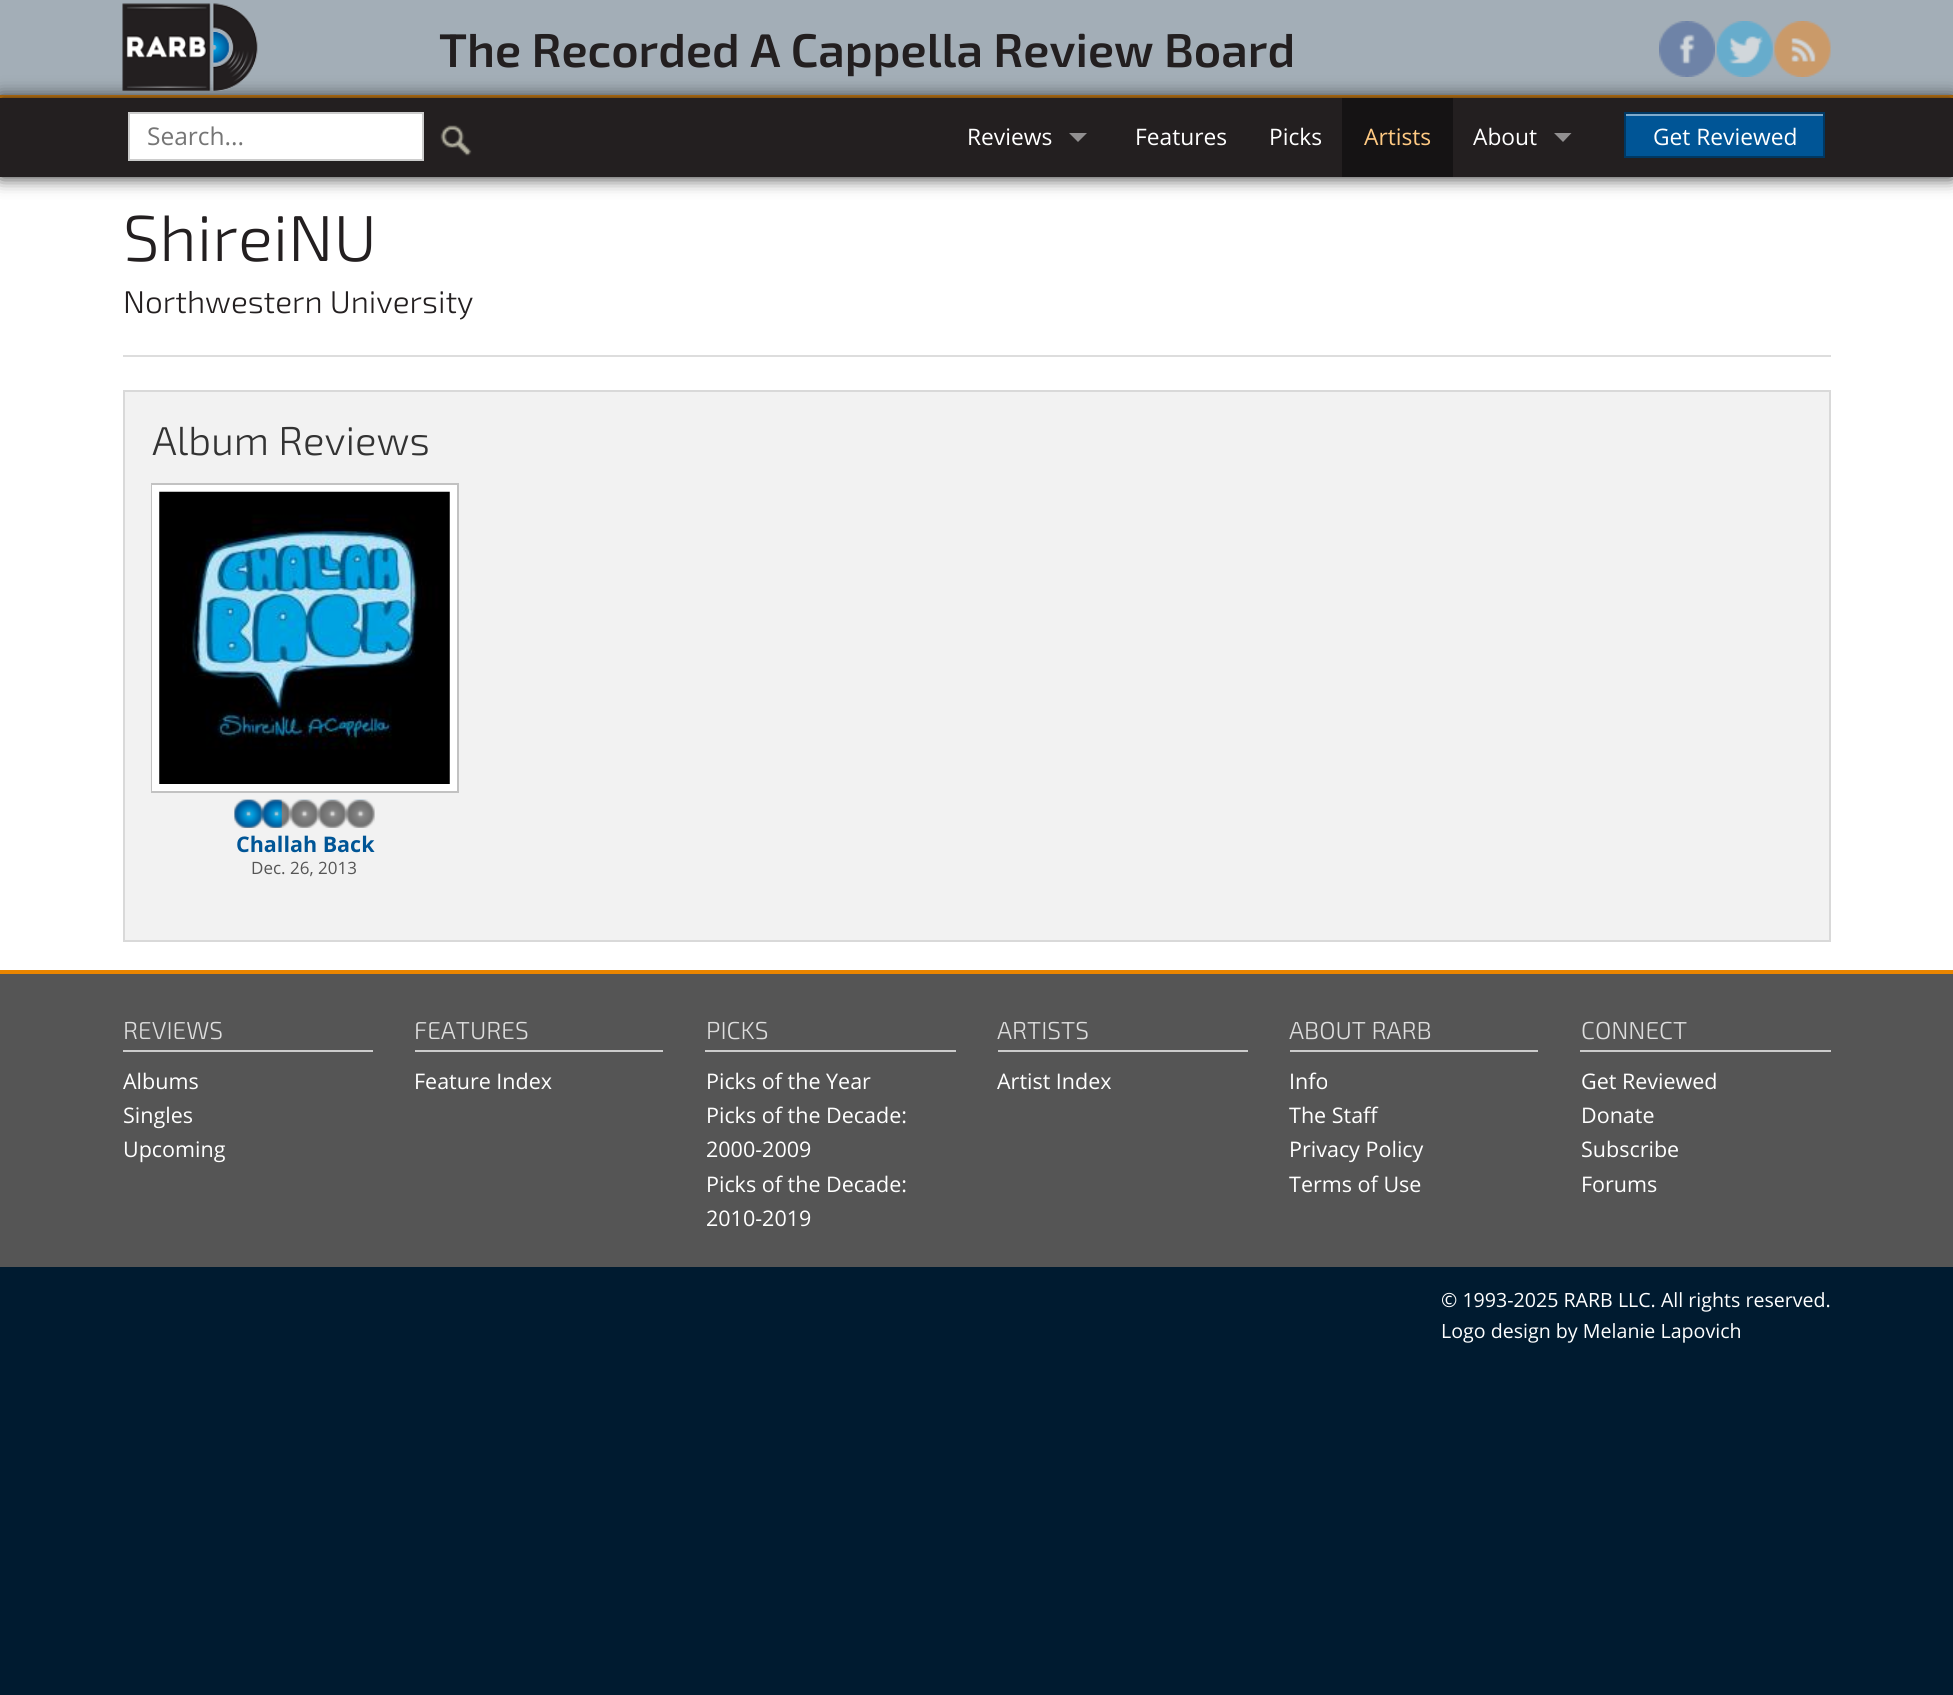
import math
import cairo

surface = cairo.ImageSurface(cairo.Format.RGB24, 1953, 1695)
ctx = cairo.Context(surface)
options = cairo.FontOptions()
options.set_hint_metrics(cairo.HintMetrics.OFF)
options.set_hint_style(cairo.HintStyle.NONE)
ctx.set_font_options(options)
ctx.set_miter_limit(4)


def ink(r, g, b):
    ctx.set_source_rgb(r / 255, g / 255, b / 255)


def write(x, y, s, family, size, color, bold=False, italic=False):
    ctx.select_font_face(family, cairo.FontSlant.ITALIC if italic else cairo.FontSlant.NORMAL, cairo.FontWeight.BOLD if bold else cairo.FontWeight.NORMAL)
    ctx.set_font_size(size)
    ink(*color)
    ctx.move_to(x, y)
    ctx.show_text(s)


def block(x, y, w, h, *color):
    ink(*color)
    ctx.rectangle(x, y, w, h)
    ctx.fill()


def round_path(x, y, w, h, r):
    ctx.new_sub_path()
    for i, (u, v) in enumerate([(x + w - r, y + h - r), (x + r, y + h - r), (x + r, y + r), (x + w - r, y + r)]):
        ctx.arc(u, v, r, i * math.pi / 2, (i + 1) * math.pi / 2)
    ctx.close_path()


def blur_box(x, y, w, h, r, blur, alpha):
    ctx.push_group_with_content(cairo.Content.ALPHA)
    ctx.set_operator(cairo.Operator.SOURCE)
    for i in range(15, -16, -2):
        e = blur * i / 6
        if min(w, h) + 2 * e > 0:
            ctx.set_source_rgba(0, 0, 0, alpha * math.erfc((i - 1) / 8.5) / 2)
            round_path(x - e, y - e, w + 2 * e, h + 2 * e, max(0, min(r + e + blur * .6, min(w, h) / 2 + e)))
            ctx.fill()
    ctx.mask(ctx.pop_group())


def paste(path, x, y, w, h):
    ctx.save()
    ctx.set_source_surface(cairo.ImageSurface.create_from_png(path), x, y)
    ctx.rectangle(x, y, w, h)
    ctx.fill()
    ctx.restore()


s1 = dict(family="Exo 2 SemiBold", size=47.25, color=(35, 31, 32))
s2 = dict(family="Open Sans", size=24.5, color=(117, 117, 117))
s3 = dict(family="Open Sans", size=22.75, color=(255, 255, 255))
s4 = dict(family="Open Sans", size=22.75, color=(255, 202, 131))
s5 = dict(family="Exo 2 Light", size=65, color=(35, 31, 32))
s6 = dict(family="Exo 2 Light", size=31.5, color=(35, 31, 32))
s7 = dict(family="Exo 2 Light", size=40.25, color=(51, 51, 51))
s8 = dict(family="Open Sans", size=21.5, color=(0, 85, 150), bold=True)
s9 = dict(family="Open Sans", size=17, color=(85, 85, 85))
s10 = dict(family="Exo 2 Light", size=24.5, color=(221, 221, 221))
s11 = dict(family="Open Sans", size=21.5, color=(255, 255, 255))
s12 = dict(family="Open Sans", size=19.6, color=(255, 255, 255))

ink(0, 27, 48)
ctx.paint()
block(0, 177, 1953, 793, 255, 255, 255)
block(0, 0, 1953, 95, 163, 174, 183)
block(0, 95, 1953, 3, 233, 133, 0)
ink(34, 34, 34)
blur_box(0, 98, 1953, 79, 0, 9, 1)
paste("pic1.png", 122, 3, 136, 88)
write(439, 67, "The Recorded A Cappella Review Board", **s1)
paste("pic2.png", 1659, 21, 56, 56)
paste("pic3.png", 1716, 21, 57, 56)
paste("pic4.png", 1774, 21, 57, 56)
block(0, 98, 1953, 79, 35, 31, 32)
ink(255, 255, 255)
ctx.rectangle(129, 113, 294, 47)
ctx.fill_preserve()
ink(204, 204, 204)
ctx.stroke()
write(147, 145, "Search...", **s2)
paste("pic5.png", 440, 125, 32, 31)
write(967, 145, "Reviews", **s3)
ink(145, 143, 144)
ctx.new_path()
ctx.move_to(1069, 133)
ctx.line_to(1087, 133)
ctx.line_to(1078, 142)
ctx.close_path()
ctx.fill()
write(1135, 145, "Features", **s3)
write(1269, 145, "Picks", **s3)
block(1342, 98, 111, 79, 21, 19, 20)
write(1364, 145, "Artists", **s4)
write(1473, 145, "About", **s3)
ink(145, 143, 144)
ctx.new_path()
ctx.move_to(1554, 133)
ctx.line_to(1571.5, 133)
ctx.line_to(1563, 142)
ctx.close_path()
ctx.fill()
block(1626, 116, 197, 40, 0, 85, 150)
block(1626, 114, 198, 2, 128, 170, 203)
ctx.rectangle(1625, 113, 199, 44)
ink(0, 56, 99)
ctx.stroke()
write(1653, 145, "Get Reviewed", **s3)
write(123, 261, "ShireiNU", **s5)
write(123, 313, "Northwestern University", **s6)
block(123, 355, 1708, 2, 221, 221, 221)
ink(242, 242, 242)
ctx.rectangle(124, 391, 1706, 550)
ctx.fill_preserve()
ink(217, 217, 217)
ctx.stroke()
write(152, 455, "Album Reviews", **s7)
ctx.rectangle(152, 484, 306, 308)
ink(194, 194, 194)
ctx.stroke()
ctx.rectangle(155.5, 488.5, 298, 299)
ink(255, 255, 255)
ctx.set_line_width(7)
ctx.stroke()
paste("pic6.png", 159, 491, 291, 293)
paste("pic7.png", 234, 799, 141, 29)
paste("pic8.png", 234, 799, 48, 29)
write(236, 852, "Challah Back", **s8)
write(251, 874, "Dec. 26, 2013", **s9)
block(0, 974, 1953, 293, 85, 85, 85)
block(0, 970, 1953, 4, 233, 133, 0)
block(123, 1050, 250, 2, 204, 204, 204)
write(123, 1039, "REVIEWS", **s10)
write(123, 1089, "Albums", **s11)
write(123, 1123, "Singles", **s11)
write(123, 1157, "Upcoming", **s11)
block(415, 1050, 248, 2, 204, 204, 204)
write(414, 1039, "FEATURES", **s10)
write(414, 1089, "Feature Index", **s11)
block(705, 1050, 251, 2, 204, 204, 204)
write(706, 1039, "PICKS", **s10)
write(706, 1089, "Picks of the Year", **s11)
write(706, 1123, "Picks of the Decade:", **s11)
write(706, 1157, "2000-2009", **s11)
write(706, 1192, "Picks of the Decade:", **s11)
write(706, 1226, "2010-2019", **s11)
block(998, 1050, 250, 2, 204, 204, 204)
write(997, 1039, "ARTISTS", **s10)
write(997, 1089, "Artist Index", **s11)
block(1290, 1050, 248, 2, 204, 204, 204)
write(1289, 1039, "ABOUT RARB", **s10)
write(1289, 1089, "Info", **s11)
write(1289, 1123, "The Staff", **s11)
write(1289, 1157, "Privacy Policy", **s11)
write(1289, 1192, "Terms of Use", **s11)
block(1580, 1050, 251, 2, 204, 204, 204)
write(1581, 1039, "CONNECT", **s10)
write(1581, 1089, "Get Reviewed", **s11)
write(1581, 1123, "Donate", **s11)
write(1581, 1157, "Subscribe", **s11)
write(1581, 1192, "Forums", **s11)
write(1441, 1307, "© 1993-2025 RARB LLC. All rights reserved.", **s12)
write(1441, 1338, "Logo design by Melanie Lapovich", **s12)
surface.write_to_png("screenshot.png")
